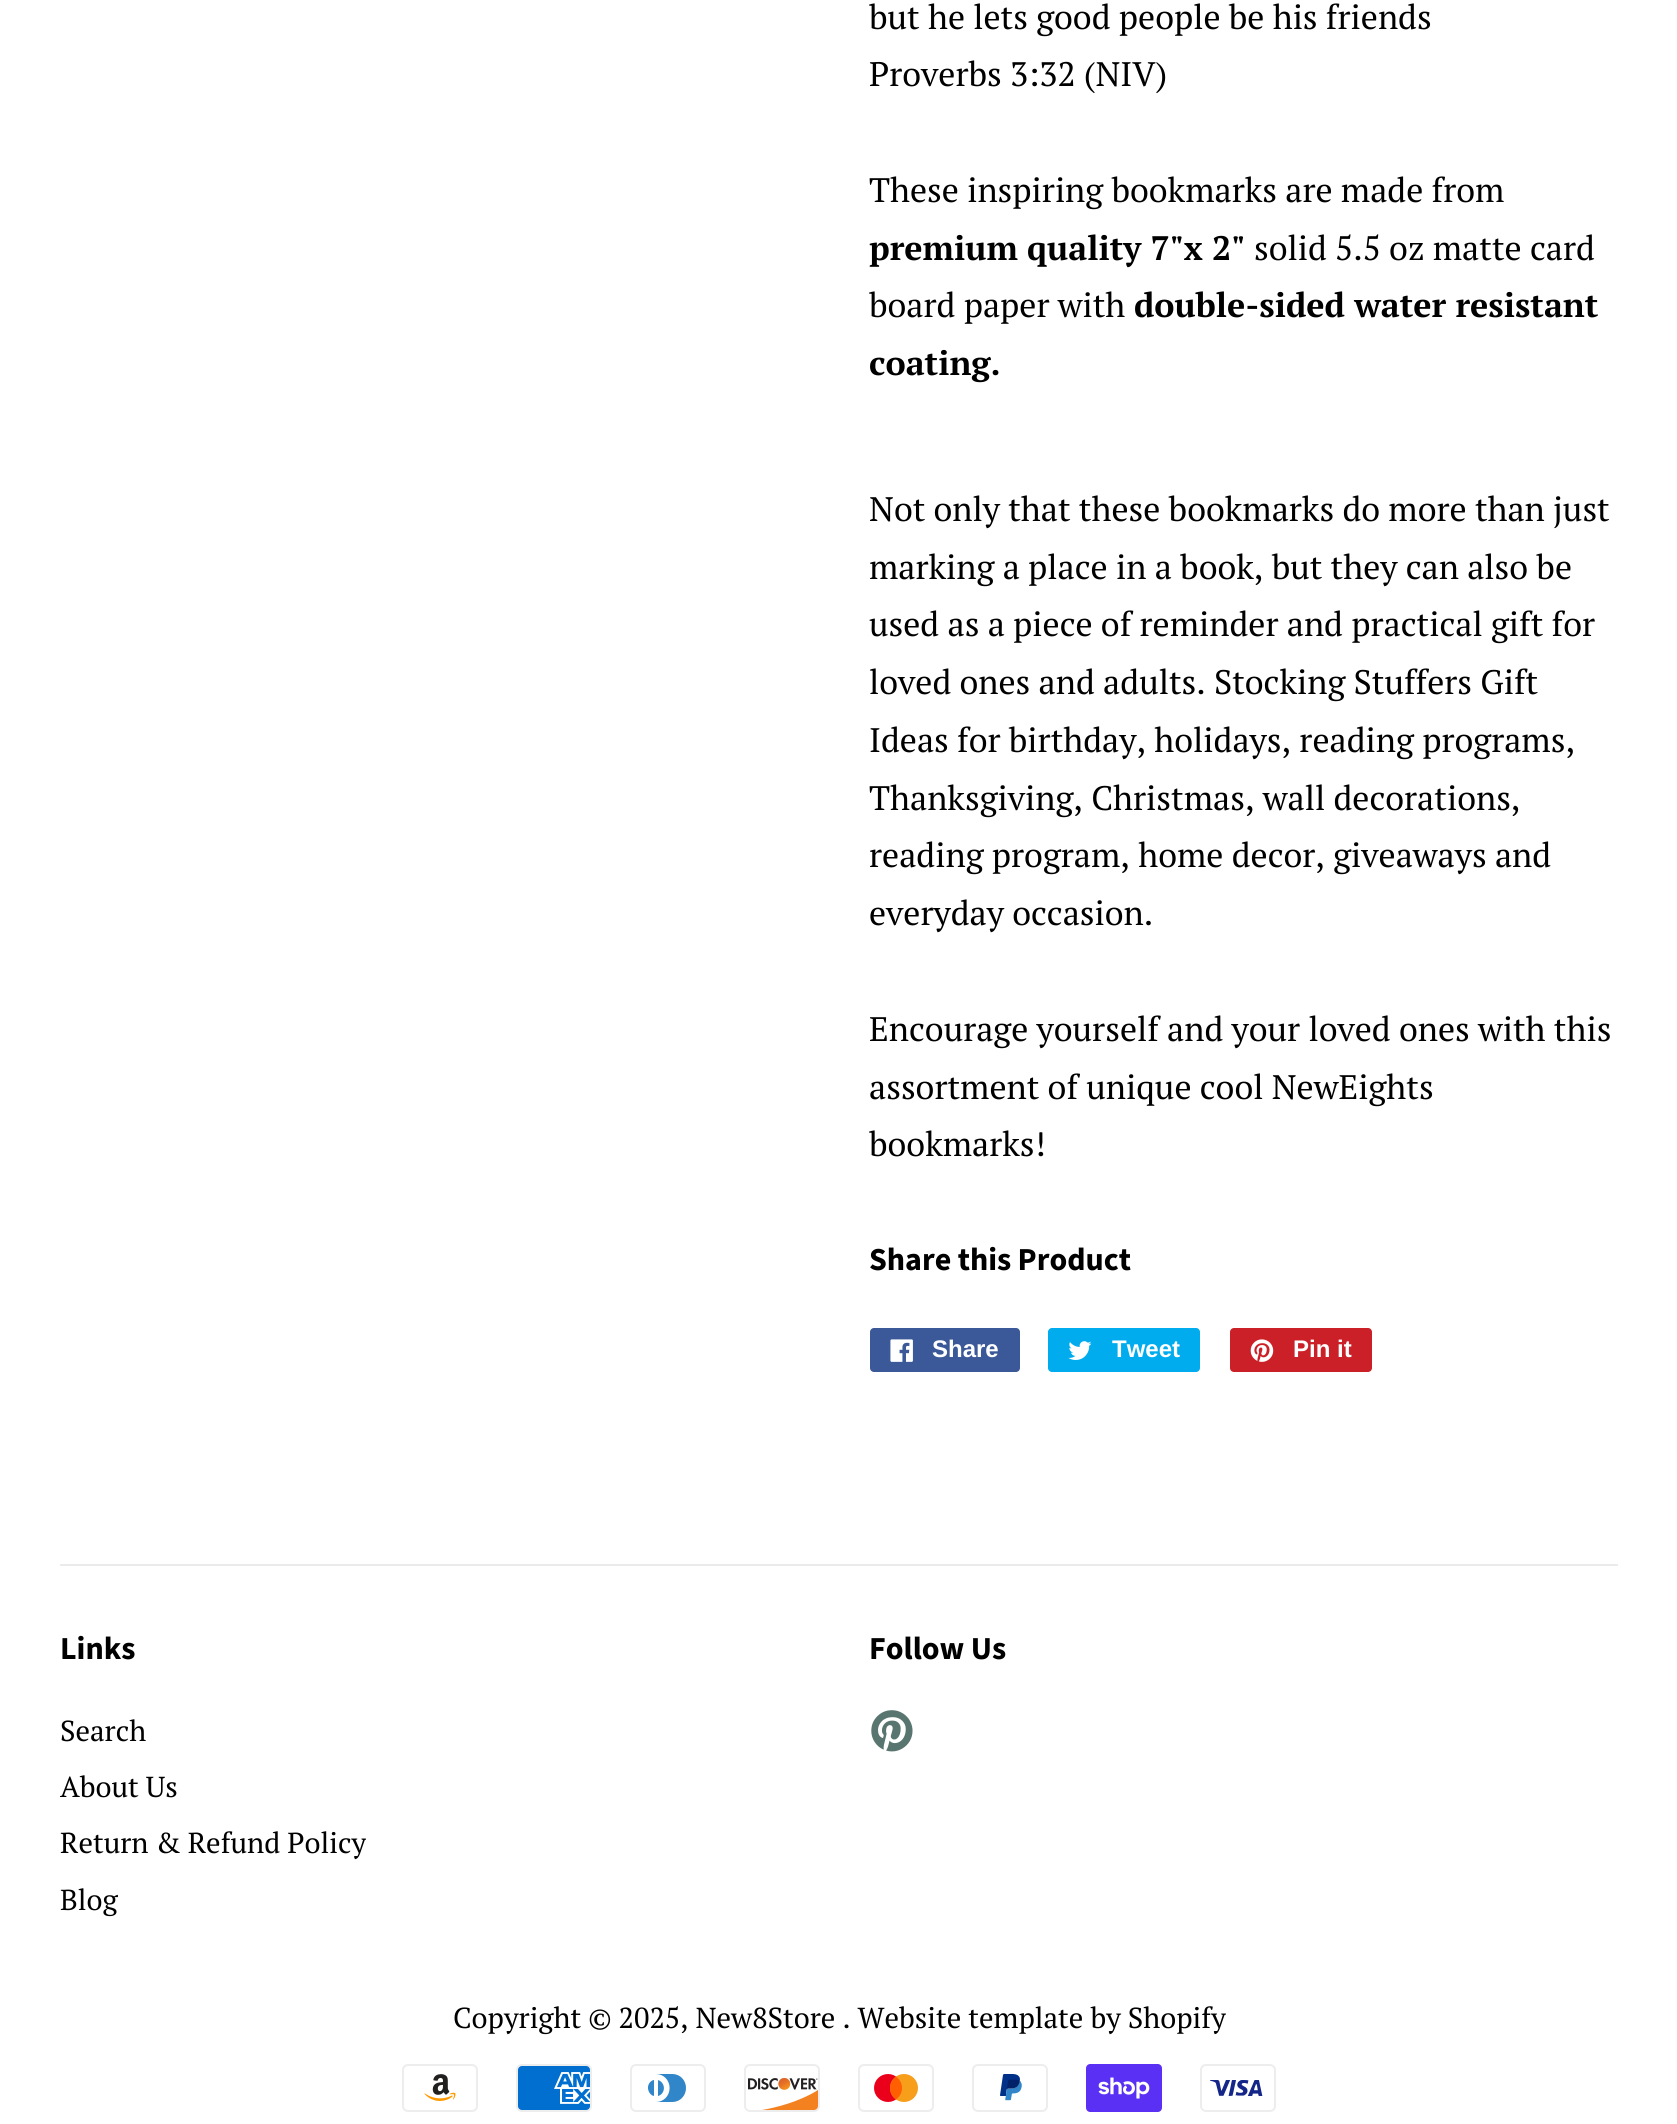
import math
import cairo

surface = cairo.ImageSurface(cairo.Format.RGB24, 1677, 2124)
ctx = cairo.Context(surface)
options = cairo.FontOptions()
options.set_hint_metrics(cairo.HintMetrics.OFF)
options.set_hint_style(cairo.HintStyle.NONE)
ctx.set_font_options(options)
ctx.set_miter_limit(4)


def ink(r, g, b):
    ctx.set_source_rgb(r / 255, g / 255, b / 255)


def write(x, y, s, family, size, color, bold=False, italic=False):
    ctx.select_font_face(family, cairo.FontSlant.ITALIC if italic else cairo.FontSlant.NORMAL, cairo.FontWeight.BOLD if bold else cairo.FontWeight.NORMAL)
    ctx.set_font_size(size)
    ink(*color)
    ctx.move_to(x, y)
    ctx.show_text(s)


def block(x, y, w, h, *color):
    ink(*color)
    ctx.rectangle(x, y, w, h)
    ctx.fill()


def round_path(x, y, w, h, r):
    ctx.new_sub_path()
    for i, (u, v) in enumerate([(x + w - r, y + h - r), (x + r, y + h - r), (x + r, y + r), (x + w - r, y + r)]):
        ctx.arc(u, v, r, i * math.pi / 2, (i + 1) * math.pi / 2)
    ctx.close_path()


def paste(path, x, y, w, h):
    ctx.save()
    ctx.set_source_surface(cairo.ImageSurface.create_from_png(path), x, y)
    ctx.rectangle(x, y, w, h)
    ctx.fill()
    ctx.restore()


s1 = dict(family="PT Serif", size=34, color=(0, 0, 0))
s2 = dict(family="PT Serif", size=34, color=(0, 0, 0), bold=True)
s3 = dict(family="Source Sans Pro", size=32, color=(0, 0, 0), bold=True)
s4 = dict(family="Liberation Sans", size=24, color=(255, 255, 255), bold=True)
s5 = dict(family="PT Serif", size=28.9, color=(0, 0, 0))

ink(255, 255, 255)
ctx.paint()
write(869, 29, "but he lets good people be his friends", **s1)
write(869, 86, "Proverbs 3:32 (NIV)", **s1)
write(869, 202, "These inspiring bookmarks are made from", **s1)
write(869, 260, "premium quality 7\"x 2\"", **s2)
write(1254, 260, "solid 5.5 oz matte card", **s1)
write(869, 317, "board paper with", **s1)
write(1134, 317, "double-sided water resistant", **s2)
write(869, 375, "coating.", **s2)
write(869, 521, "Not only that these bookmarks do more than just", **s1)
write(869, 579, "marking a place in a book, but they can also be", **s1)
write(869, 636, "used as a piece of reminder and practical gift for", **s1)
write(869, 694, "loved ones and adults. Stocking Stuffers Gift", **s1)
write(869, 752, "Ideas for birthday, holidays, reading programs,", **s1)
write(869, 810, "Thanksgiving, Christmas, wall decorations,", **s1)
write(869, 867, "reading program, home decor, giveaways and", **s1)
write(869, 925, "everyday occasion.", **s1)
write(869, 1041, "Encourage yourself and your loved ones with this", **s1)
write(869, 1099, "assortment of unique cool NewEights", **s1)
write(869, 1156, "bookmarks!", **s1)
write(869, 1270, "Share this Product", **s3)
ink(59, 89, 152)
round_path(870, 1328, 150, 44, 4)
ctx.fill()
paste("pic1.png", 890, 1339, 23, 23)
write(932, 1357, "Share", **s4)
ink(0, 172, 237)
round_path(1048, 1328, 152, 44, 4)
ctx.fill()
paste("pic2.png", 1068, 1341, 24, 19)
write(1112, 1357, "Tweet", **s4)
ink(203, 32, 39)
round_path(1230, 1328, 142, 44, 4)
ctx.fill()
paste("pic3.png", 1250, 1339, 24, 23)
write(1293, 1357, "Pin it", **s4)
block(60, 1564, 1558, 2, 235, 235, 235)
write(60, 1659, "Links", **s3)
write(60, 1741, "Search", **s5)
write(60, 1797, "About Us", **s5)
write(60, 1853, "Return & Refund Policy", **s5)
write(60, 1910, "Blog", **s5)
write(869, 1659, "Follow Us", **s3)
paste("pic4.png", 871, 1710, 42, 42)
write(453, 2028, "Copyright © 2025, New8Store . Website template by Shopify", **s5)
paste("pic5.png", 402, 2064, 76, 48)
paste("pic6.png", 516, 2064, 76, 48)
paste("pic7.png", 630, 2064, 76, 48)
paste("pic8.png", 744, 2064, 76, 48)
paste("pic9.png", 858, 2064, 76, 48)
paste("pic10.png", 972, 2064, 76, 48)
paste("pic11.png", 1086, 2064, 76, 48)
paste("pic12.png", 1200, 2064, 76, 48)
surface.write_to_png("screenshot.png")
